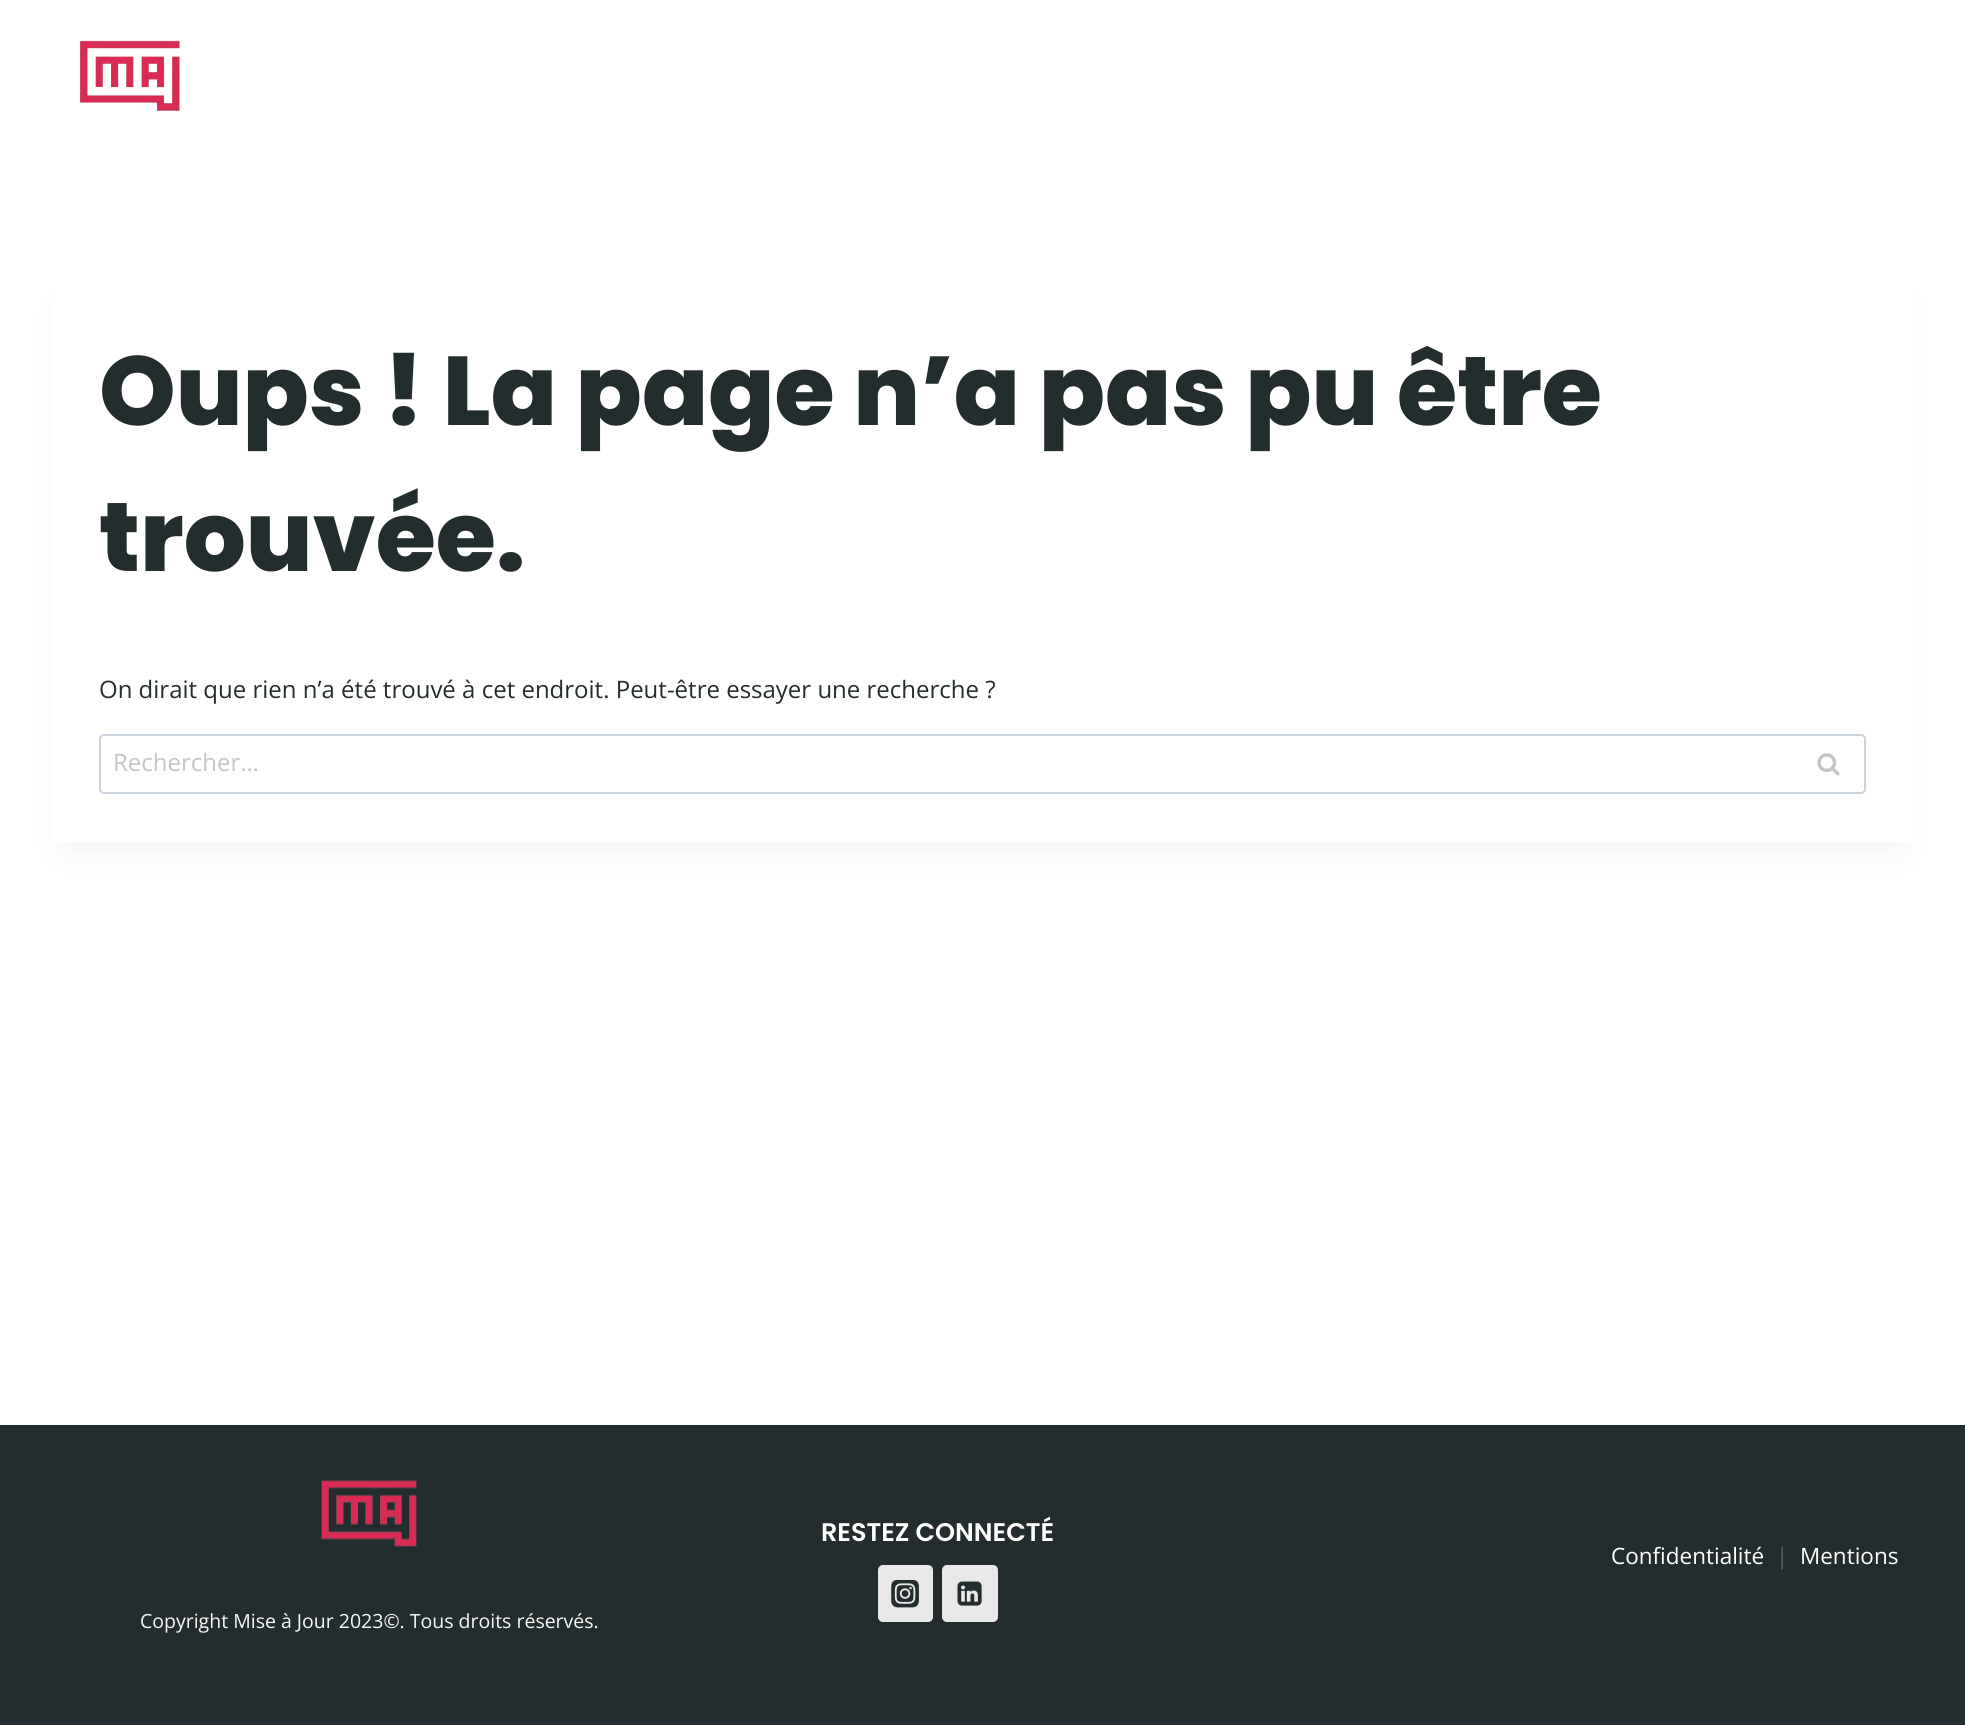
import math
import cairo

surface = cairo.ImageSurface(cairo.Format.RGB24, 1965, 1725)
ctx = cairo.Context(surface)
options = cairo.FontOptions()
options.set_hint_metrics(cairo.HintMetrics.OFF)
options.set_hint_style(cairo.HintStyle.NONE)
ctx.set_font_options(options)
ctx.set_miter_limit(4)


def ink(r, g, b):
    ctx.set_source_rgb(r / 255, g / 255, b / 255)


def write(x, y, s, family, size, color, bold=False, italic=False):
    ctx.select_font_face(family, cairo.FontSlant.ITALIC if italic else cairo.FontSlant.NORMAL, cairo.FontWeight.BOLD if bold else cairo.FontWeight.NORMAL)
    ctx.set_font_size(size)
    ink(*color)
    ctx.move_to(x, y)
    ctx.show_text(s)


def block(x, y, w, h, *color):
    ink(*color)
    ctx.rectangle(x, y, w, h)
    ctx.fill()


def round_path(x, y, w, h, r):
    ctx.new_sub_path()
    for i, (u, v) in enumerate([(x + w - r, y + h - r), (x + r, y + h - r), (x + r, y + r), (x + w - r, y + r)]):
        ctx.arc(u, v, r, i * math.pi / 2, (i + 1) * math.pi / 2)
    ctx.close_path()


def blur_box(x, y, w, h, r, blur, alpha):
    ctx.push_group_with_content(cairo.Content.ALPHA)
    ctx.set_operator(cairo.Operator.SOURCE)
    for i in range(15, -16, -2):
        e = blur * i / 6
        if min(w, h) + 2 * e > 0:
            ctx.set_source_rgba(0, 0, 0, alpha * math.erfc((i - 1) / 8.5) / 2)
            round_path(x - e, y - e, w + 2 * e, h + 2 * e, max(0, min(r + e + blur * .6, min(w, h) / 2 + e)))
            ctx.fill()
    ctx.mask(ctx.pop_group())


def paste(path, x, y, w, h):
    ctx.save()
    ctx.set_source_surface(cairo.ImageSurface.create_from_png(path), x, y)
    ctx.rectangle(x, y, w, h)
    ctx.fill()
    ctx.restore()


s1 = dict(family="Poppins ExtraBold", size=97.5, color=(36, 45, 45))
s2 = dict(family="Open Sans", size=24, color=(36, 45, 45))
s3 = dict(family="Open Sans", size=24, color=(197, 197, 197))
s4 = dict(family="Poppins SemiBold", size=25.5, color=(255, 255, 255))
s5 = dict(family="Open Sans", size=22.5, color=(255, 255, 255))
s6 = dict(family="Open Sans", size=22.5, color=(95, 95, 95))
s7 = dict(family="Open Sans", size=19.5, color=(247, 247, 247))

ink(255, 255, 255)
ctx.paint()
paste("pic1.png", 80, 40, 100, 71)
ink(0, 0, 0)
blur_box(66, 308, 1833, 541, 0, 19, 0.05)
ink(255, 255, 255)
round_path(51, 270, 1863, 572, 6)
ctx.fill()
write(99, 425, "Oups ! La page n’a pas pu être", **s1)
write(99, 571, "trouvée.", **s1)
write(99, 698, "On dirait que rien n’a été trouvé à cet endroit. Peut-être essayer une recherche ?", **s2)
round_path(100, 735, 1765, 58, 4)
ink(203, 213, 224)
ctx.stroke()
write(113, 771, "Rechercher…", **s3)
paste("pic2.png", 1817, 753, 23, 23)
block(0, 1425, 1965, 300, 36, 45, 45)
write(821, 1541, "RESTEZ CONNECTÉ", **s4)
ink(232, 232, 232)
round_path(878, 1565, 55, 57, 5)
ctx.fill()
paste("pic3.png", 891, 1580, 28, 28)
round_path(942, 1565, 56, 57, 5)
ctx.fill()
paste("pic4.png", 957, 1581, 25, 25)
write(1611, 1564, "Confidentialité", **s5)
write(1776, 1564, "|", **s6)
write(1800, 1564, "Mentions", **s5)
paste("pic5.png", 321, 1480, 96, 67)
write(140, 1628, "Copyright Mise à Jour 2023©. Tous droits réservés.", **s7)
surface.write_to_png("screenshot.png")
